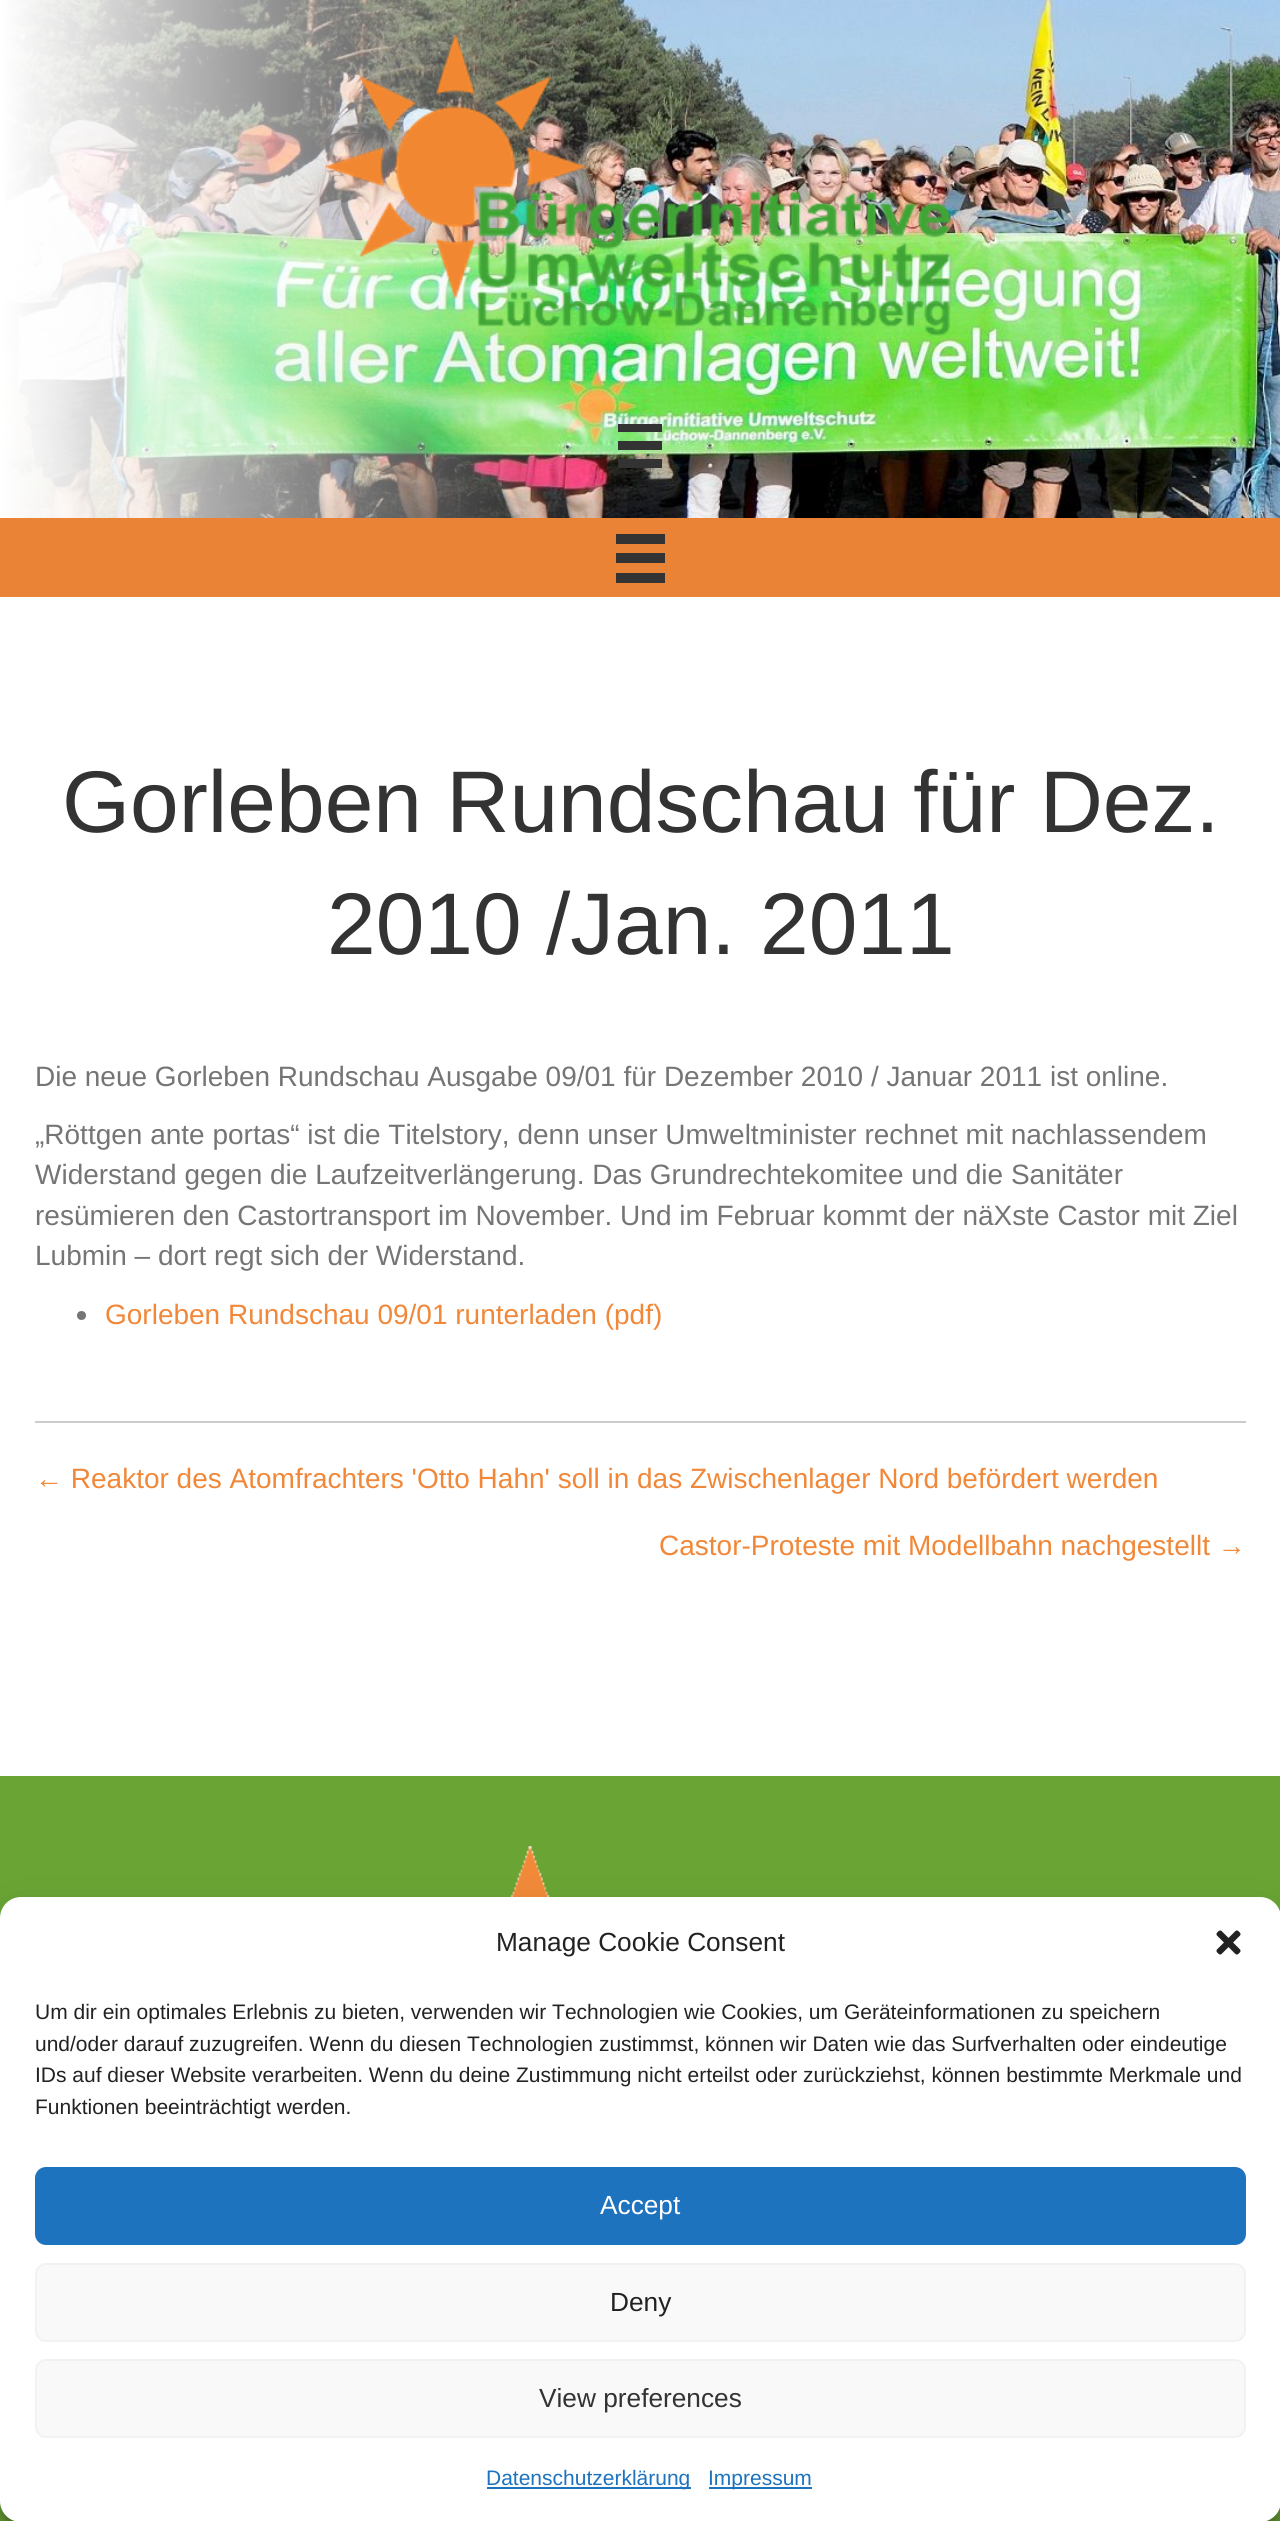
import math
import cairo

surface = cairo.ImageSurface(cairo.Format.RGB24, 1280, 2521)
ctx = cairo.Context(surface)
options = cairo.FontOptions()
options.set_hint_metrics(cairo.HintMetrics.OFF)
options.set_hint_style(cairo.HintStyle.NONE)
ctx.set_font_options(options)
ctx.set_miter_limit(4)


def ink(r, g, b):
    ctx.set_source_rgb(r / 255, g / 255, b / 255)


def write(x, y, s, family, size, color, bold=False, italic=False):
    ctx.select_font_face(family, cairo.FontSlant.ITALIC if italic else cairo.FontSlant.NORMAL, cairo.FontWeight.BOLD if bold else cairo.FontWeight.NORMAL)
    ctx.set_font_size(size)
    ink(*color)
    ctx.move_to(x, y)
    ctx.show_text(s)


def block(x, y, w, h, *color):
    ink(*color)
    ctx.rectangle(x, y, w, h)
    ctx.fill()


def round_path(x, y, w, h, r):
    ctx.new_sub_path()
    for i, (u, v) in enumerate([(x + w - r, y + h - r), (x + r, y + h - r), (x + r, y + r), (x + w - r, y + r)]):
        ctx.arc(u, v, r, i * math.pi / 2, (i + 1) * math.pi / 2)
    ctx.close_path()


def blur_box(x, y, w, h, r, blur, alpha):
    ctx.push_group_with_content(cairo.Content.ALPHA)
    ctx.set_operator(cairo.Operator.SOURCE)
    for i in range(15, -16, -2):
        e = blur * i / 6
        if min(w, h) + 2 * e > 0:
            ctx.set_source_rgba(0, 0, 0, alpha * math.erfc((i - 1) / 8.5) / 2)
            round_path(x - e, y - e, w + 2 * e, h + 2 * e, max(0, min(r + e + blur * .6, min(w, h) / 2 + e)))
            ctx.fill()
    ctx.mask(ctx.pop_group())


def paste(path, x, y, w, h):
    ctx.save()
    ctx.set_source_surface(cairo.ImageSurface.create_from_png(path), x, y)
    ctx.rectangle(x, y, w, h)
    ctx.fill()
    ctx.restore()


s1 = dict(family="Liberation Sans", size=87.5, color=(51, 51, 51))
s2 = dict(family="Liberation Sans", size=28, color=(117, 117, 117))
s3 = dict(family="Liberation Sans", size=28, color=(241, 136, 57))
s4 = dict(family="Liberation Sans", size=26.25, color=(34, 34, 34))
s5 = dict(family="Liberation Sans", size=21, color=(34, 34, 34))
s6 = dict(family="Liberation Sans", size=26.25, color=(255, 255, 255))
s7 = dict(family="Liberation Sans", size=26.25, color=(51, 51, 51))
s8 = dict(family="Liberation Sans", size=21, color=(30, 115, 190))

ink(255, 255, 255)
ctx.paint()
paste("pic1.png", 4, 0, 1276, 518)
gradient = cairo.LinearGradient(0, 298, 641, 298)
gradient.add_color_stop_rgba(0, 1, 1, 1, 1)
gradient.add_color_stop_rgba(1, 1, 1, 1, 0)
ctx.set_source(gradient)
ctx.rectangle(4, 0, 623, 518)
ctx.fill()
paste("pic2.png", 325, 35, 626, 301)
block(618, 424, 44, 8, 51, 51, 51)
block(618, 441, 44, 9, 51, 51, 51)
block(618, 459, 44, 9, 51, 51, 51)
block(0, 518, 1280, 79, 235, 131, 55)
block(616, 534, 49, 10, 51, 51, 51)
block(616, 553, 49, 10, 51, 51, 51)
block(616, 573, 49, 10, 51, 51, 51)
write(62, 832, "Gorleben Rundschau für Dez.", **s1)
write(327, 954, "2010 /Jan. 2011", **s1)
write(35, 1086, "Die neue Gorleben Rundschau Ausgabe 09/01 für Dezember 2010 / Januar 2011 ist online.", **s2)
write(35, 1144, "„Röttgen ante portas“ ist die Titelstory, denn unser Umweltminister rechnet mit nachlassendem", **s2)
write(35, 1184, "Widerstand gegen die Laufzeitverlängerung. Das Grundrechtekomitee und die Sanitäter", **s2)
write(35, 1225, "resümieren den Castortransport im November. Und im Februar kommt der näXste Castor mit Ziel", **s2)
write(35, 1265, "Lubmin – dort regt sich der Widerstand.", **s2)
ctx.new_path()
ctx.arc(81.5, 1315.5, 4.5, 0, 2 * math.pi)
ctx.fill()
write(105, 1324, "Gorleben Rundschau 09/01 runterladen (pdf)", **s3)
block(35, 1421, 1211, 2, 204, 204, 204)
write(35, 1488, "← Reaktor des Atomfrachters 'Otto Hahn' soll in das Zwischenlager Nord befördert werden", **s3)
write(659, 1555, "Castor-Proteste mit Modellbahn nachgestellt →", **s3)
block(0, 1776, 1280, 745, 105, 164, 52)
paste("pic3.png", 510, 1846, 40, 51)
ink(0, 0, 0)
blur_box(0, 1908, 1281, 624, 21, 5, 0.23)
blur_box(0, 1915, 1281, 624, 21, 17.5, 0.19)
ink(255, 255, 255)
round_path(0, 1897, 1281, 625, 21)
ctx.fill()
write(496, 1951, "Manage Cookie Consent", **s4)
paste("pic4.png", 1216, 1930, 25, 25)
write(35, 2019, "Um dir ein optimales Erlebnis zu bieten, verwenden wir Technologien wie Cookies, um Geräteinformationen zu speichern", **s5)
write(35, 2051, "und/oder darauf zuzugreifen. Wenn du diesen Technologien zustimmst, können wir Daten wie das Surfverhalten oder eindeutige", **s5)
write(35, 2082, "IDs auf dieser Website verarbeiten. Wenn du deine Zustimmung nicht erteilst oder zurückziehst, können bestimmte Merkmale und", **s5)
write(35, 2114, "Funktionen beeinträchtigt werden.", **s5)
ink(30, 115, 190)
round_path(36, 2168, 1209, 76, 10)
ctx.fill_preserve()
ctx.stroke()
write(600, 2214, "Accept", **s6)
ink(249, 249, 249)
round_path(36, 2264, 1209, 77, 10)
ctx.fill_preserve()
ink(242, 242, 242)
ctx.stroke()
write(610, 2311, "Deny", **s4)
ink(249, 249, 249)
round_path(36, 2360, 1209, 77, 10)
ctx.fill_preserve()
ink(242, 242, 242)
ctx.stroke()
write(539, 2407, "View preferences", **s7)
block(487, 2487, 204, 2, 30, 115, 190)
write(486, 2485, "Datenschutzerklärung", **s8)
block(709, 2487, 103, 2, 30, 115, 190)
write(708, 2485, "Impressum", **s8)
surface.write_to_png("screenshot.png")
